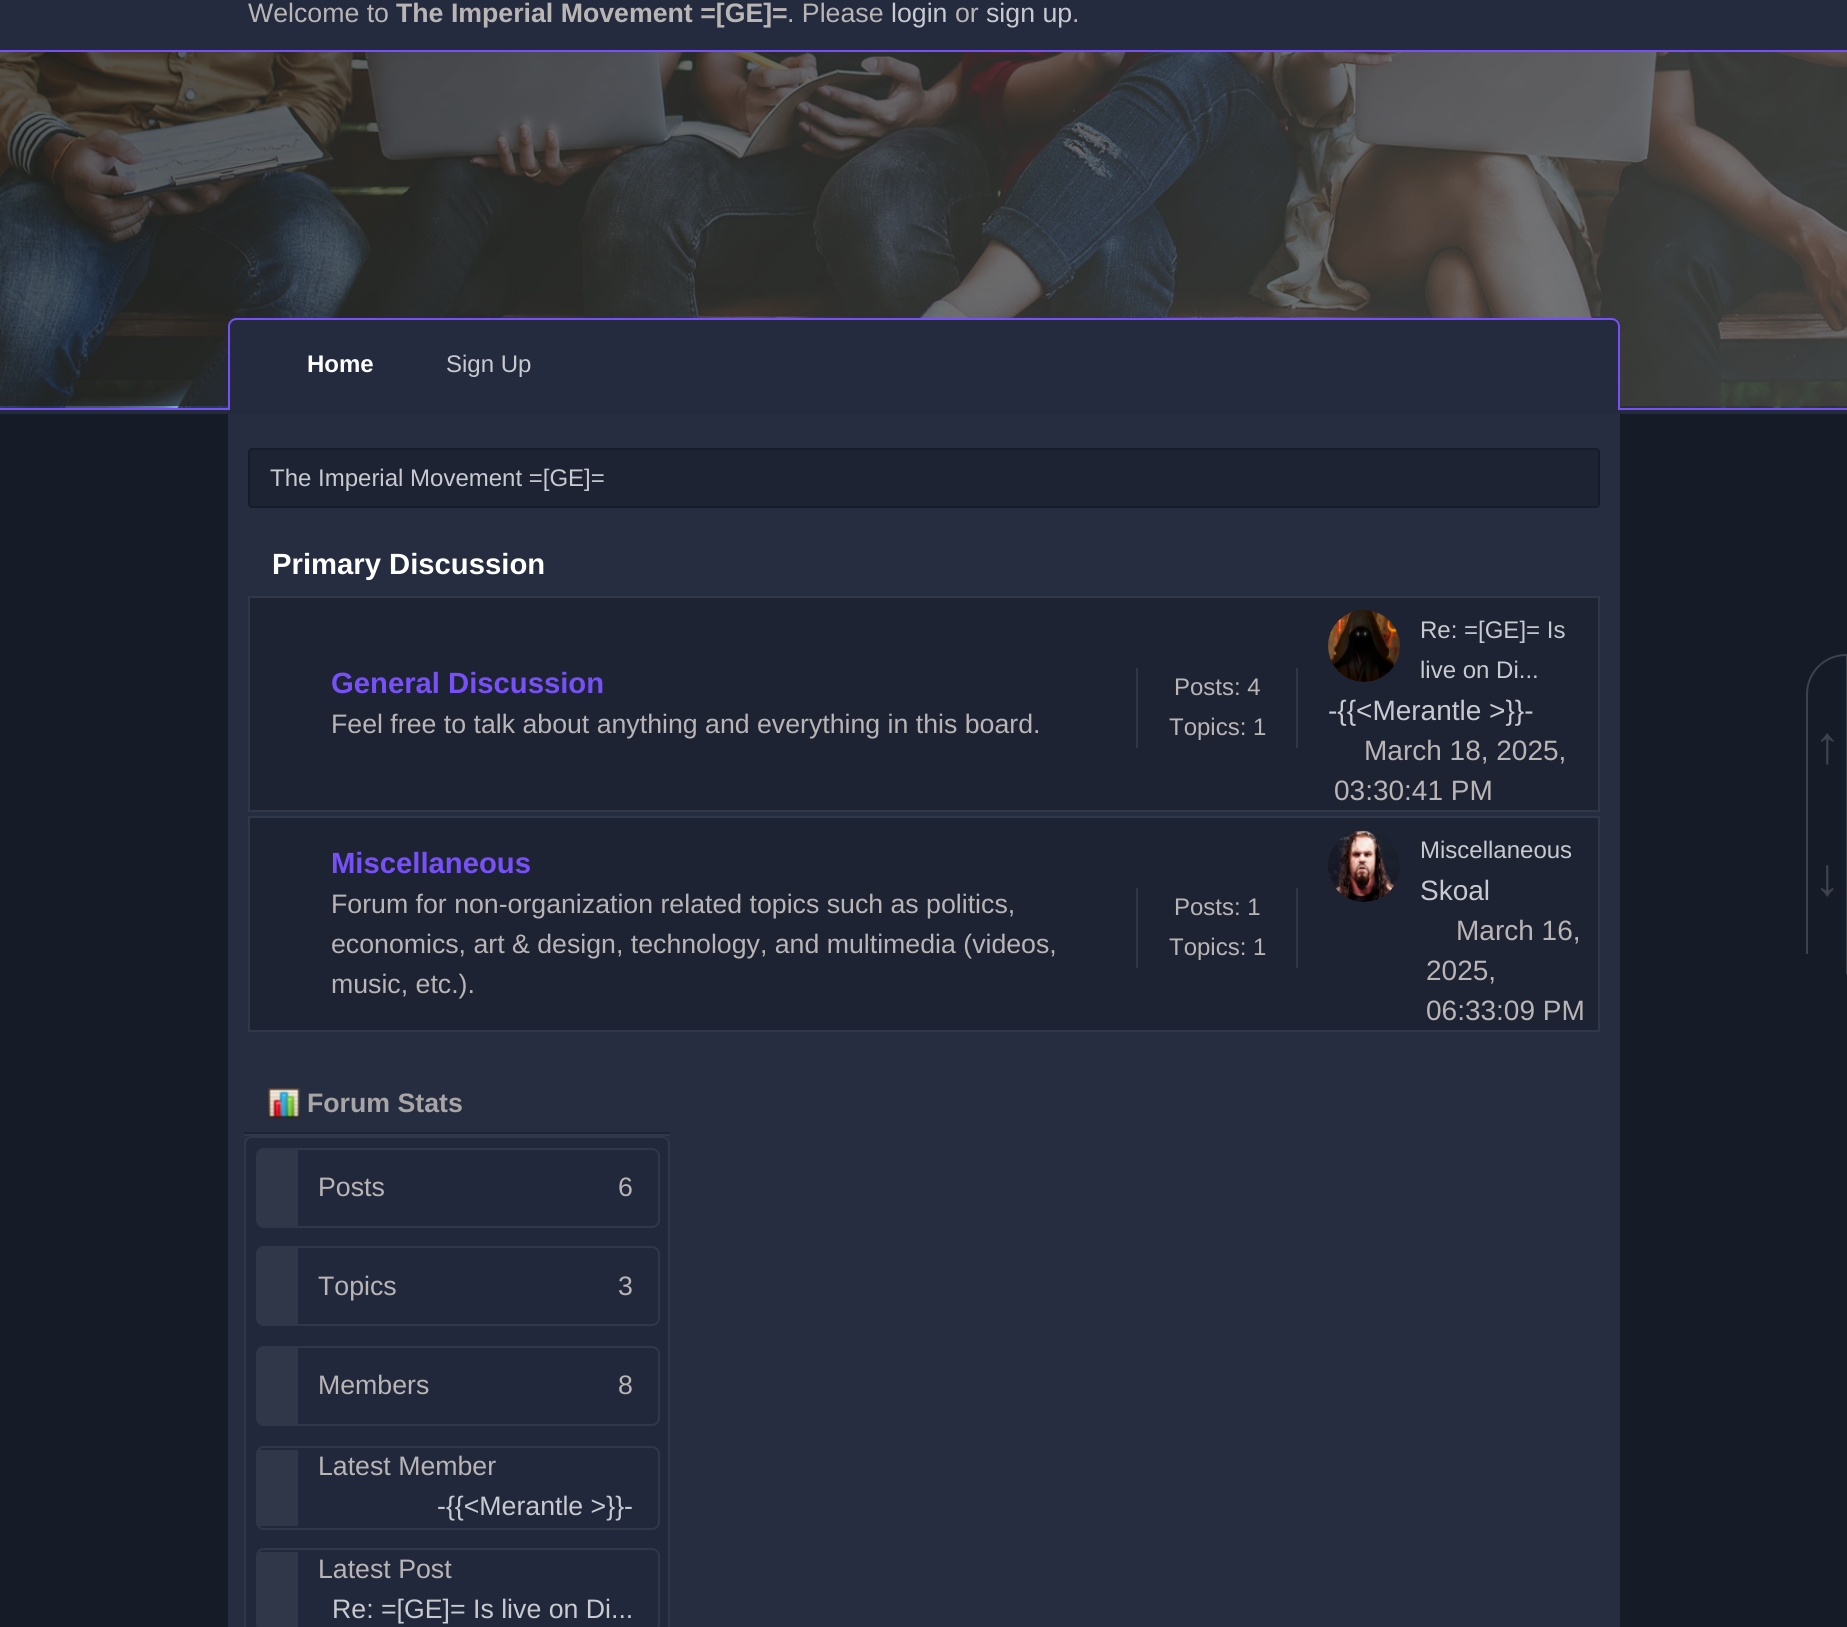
import math
import cairo

surface = cairo.ImageSurface(cairo.Format.RGB24, 1847, 1627)
ctx = cairo.Context(surface)
options = cairo.FontOptions()
options.set_hint_metrics(cairo.HintMetrics.OFF)
options.set_hint_style(cairo.HintStyle.NONE)
ctx.set_font_options(options)
ctx.set_miter_limit(4)


def ink(r, g, b):
    ctx.set_source_rgb(r / 255, g / 255, b / 255)


def write(x, y, s, family, size, color, bold=False, italic=False):
    ctx.select_font_face(family, cairo.FontSlant.ITALIC if italic else cairo.FontSlant.NORMAL, cairo.FontWeight.BOLD if bold else cairo.FontWeight.NORMAL)
    ctx.set_font_size(size)
    ink(*color)
    ctx.move_to(x, y)
    ctx.show_text(s)


def block(x, y, w, h, *color):
    ink(*color)
    ctx.rectangle(x, y, w, h)
    ctx.fill()


def round_path(x, y, w, h, r):
    ctx.new_sub_path()
    for i, (u, v) in enumerate([(x + w - r, y + h - r), (x + r, y + h - r), (x + r, y + r), (x + w - r, y + r)]):
        ctx.arc(u, v, r, i * math.pi / 2, (i + 1) * math.pi / 2)
    ctx.close_path()


def paste(path, x, y, w, h):
    ctx.save()
    ctx.set_source_surface(cairo.ImageSurface.create_from_png(path), x, y)
    ctx.rectangle(x, y, w, h)
    ctx.fill()
    ctx.restore()


s1 = dict(family="Liberation Sans", size=26.7, color=(185, 181, 181))
s2 = dict(family="Liberation Sans", size=26.7, color=(185, 181, 181), bold=True)
s3 = dict(family="Liberation Sans", size=26.7, color=(200, 202, 208))
s4 = dict(family="Liberation Sans", size=24, color=(255, 255, 255), bold=True)
s5 = dict(family="Liberation Sans", size=24, color=(200, 202, 208))
s6 = dict(family="Liberation Sans", size=29.25, color=(255, 255, 255), bold=True)
s7 = dict(family="Liberation Sans", size=29.25, color=(119, 80, 248), bold=True)
s8 = dict(family="Liberation Sans", size=24, color=(185, 181, 181))
s9 = dict(family="Liberation Sans", size=28, color=(200, 202, 208))
s10 = dict(family="Liberation Sans", size=28, color=(185, 181, 181))
s11 = dict(family="Liberation Sans", size=26.7, color=(167, 165, 165), bold=True)
s12 = dict(family="Liberation Sans", size=53, color=(61, 66, 76), bold=True)

ink(22, 27, 40)
ctx.paint()
block(0, 0, 1847, 50, 36, 43, 62)
block(0, 50, 1847, 2, 119, 80, 248)
write(248, 22, "Welcome to", **s1)
write(396, 22, "The Imperial Movement =[GE]=", **s2)
write(787, 22, ". Please", **s1)
write(891, 22, "login", **s3)
write(955, 22, "or", **s1)
write(986, 22, "sign up", **s3)
write(1072, 22, ".", **s1)
paste("pic1.png", 0, 52, 1847, 356)
block(0, 408, 1847, 2, 119, 80, 248)
block(0, 410, 1847, 4, 36, 43, 62)
gradient = cairo.LinearGradient(1507, 772, 341, -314)
gradient.add_color_stop_rgba(0, 0.267, 0.267, 0.267, 0.7)
gradient.add_color_stop_rgba(1, 0.094, 0.094, 0.094, 0.7)
ctx.set_source(gradient)
ctx.rectangle(0, 52, 1847, 354)
ctx.fill()
ink(36, 43, 62)
ctx.new_path()
ctx.move_to(236, 318)
ctx.line_to(1612, 318)
ctx.curve_to(1616.5, 318, 1620, 321.5, 1620, 326)
ctx.line_to(1620, 410)
ctx.line_to(228, 410)
ctx.line_to(228, 326)
ctx.curve_to(228, 321.5, 231.5, 318, 236, 318)
ctx.close_path()
ctx.fill()
ink(119, 80, 248)
ctx.set_fill_rule(cairo.FillRule.EVEN_ODD)
ctx.new_path()
ctx.move_to(236, 318)
ctx.line_to(1612, 318)
ctx.curve_to(1616, 318, 1620, 322, 1620, 326)
ctx.line_to(1620, 410)
ctx.line_to(228, 410)
ctx.line_to(228, 326)
ctx.curve_to(228, 322, 232, 318, 236, 318)
ctx.close_path()
ctx.move_to(236, 320)
ctx.line_to(1612, 320)
ctx.curve_to(1615, 320, 1618, 323, 1618, 326)
ctx.line_to(1618, 410)
ctx.line_to(230, 410)
ctx.line_to(230, 326)
ctx.curve_to(230, 323, 233, 320, 236, 320)
ctx.close_path()
ctx.fill()
write(307, 372, "Home", **s4)
write(446, 372, "Sign Up", **s5)
block(228, 414, 1392, 1213, 38, 45, 64)
ink(29, 35, 51)
round_path(248, 448, 1352, 60, 4)
ctx.fill()
round_path(249, 449, 1350, 58, 3)
ctx.set_source_rgba(0, 0, 0, 0.2)
ctx.stroke()
write(270, 486, "The Imperial Movement =[GE]=", **s5)
write(272, 574, "Primary Discussion", **s6)
ink(29, 35, 51)
ctx.rectangle(249, 597, 1350, 214)
ctx.fill_preserve()
ink(47, 55, 73)
ctx.stroke()
write(331, 693, "General Discussion", **s7)
write(331, 733, "Feel free to talk about anything and everything in this board.", **s1)
block(1296, 668, 2, 80, 47, 55, 73)
block(1136, 668, 2, 80, 47, 55, 73)
write(1174, 695, "Posts: 4", **s8)
write(1169, 735, "Topics: 1", **s8)
paste("pic2.png", 1328, 610, 72, 72)
write(1420, 638, "Re: =[GE]= Is", **s5)
write(1420, 678, "live on Di...", **s5)
write(1328, 720, "-{{<Merantle >}}-", **s9)
write(1364, 760, "March 18, 2025,", **s10)
write(1334, 800, "03:30:41 PM", **s10)
ink(29, 35, 51)
ctx.rectangle(249, 817, 1350, 214)
ctx.fill_preserve()
ink(47, 55, 73)
ctx.stroke()
write(331, 873, "Miscellaneous", **s7)
write(331, 913, "Forum for non-organization related topics such as politics,", **s1)
write(331, 953, "economics, art & design, technology, and multimedia (videos,", **s1)
write(331, 993, "music, etc.).", **s1)
block(1296, 888, 2, 80, 47, 55, 73)
block(1136, 888, 2, 80, 47, 55, 73)
write(1174, 915, "Posts: 1", **s8)
write(1169, 955, "Topics: 1", **s8)
paste("pic3.png", 1328, 830, 72, 72)
write(1420, 858, "Miscellaneous", **s5)
write(1420, 900, "Skoal", **s9)
write(1456, 940, "March 16,", **s10)
write(1426, 980, "2025,", **s10)
write(1426, 1020, "06:33:09 PM", **s10)
block(244, 1132, 426, 2, 29, 35, 51)
block(244, 1134, 426, 2, 47, 55, 73)
paste("pic4.png", 268, 1088, 32, 31)
write(307, 1112, "Forum Stats", **s11)
ink(33, 40, 59)
round_path(245, 1137, 424, 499, 7)
ctx.fill_preserve()
ink(47, 55, 73)
ctx.stroke()
round_path(257, 1149, 402, 78, 7)
ctx.stroke()
block(258, 1150, 40, 76, 47, 55, 73)
write(318, 1196, "Posts", **s1)
write(618, 1196, "6", **s1)
round_path(257, 1247, 402, 78, 7)
ink(47, 55, 73)
ctx.stroke()
block(258, 1248, 40, 76, 47, 55, 73)
write(318, 1295, "Topics", **s1)
write(618, 1295, "3", **s1)
round_path(257, 1347, 402, 78, 7)
ink(47, 55, 73)
ctx.stroke()
block(258, 1348, 40, 76, 47, 55, 73)
write(318, 1394, "Members", **s1)
write(618, 1394, "8", **s1)
round_path(257, 1447, 402, 82, 7)
ink(47, 55, 73)
ctx.stroke()
block(258, 1450, 40, 76, 47, 55, 73)
write(318, 1475, "Latest Member", **s1)
write(437, 1515, "-{{<Merantle >}}-", **s3)
round_path(257, 1549, 402, 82, 7)
ink(47, 55, 73)
ctx.stroke()
block(258, 1552, 40, 75, 47, 55, 73)
write(318, 1578, "Latest Post", **s1)
write(332, 1618, "Re: =[GE]= Is live on Di...", **s3)
ink(61, 66, 76)
ctx.new_path()
ctx.move_to(1846, 654)
ctx.line_to(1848, 654)
ctx.line_to(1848, 814)
ctx.line_to(1806, 814)
ctx.line_to(1806, 694)
ctx.curve_to(1806, 672, 1824, 654, 1846, 654)
ctx.close_path()
ctx.move_to(1846, 656)
ctx.line_to(1846, 814)
ctx.line_to(1808, 814)
ctx.line_to(1808, 694)
ctx.curve_to(1808, 673, 1825, 656, 1846, 656)
ctx.close_path()
ctx.fill()
write(1814, 763, "↑", **s12)
block(1846, 814, 1, 160, 61, 66, 76)
block(1806, 814, 2, 140, 61, 66, 76)
write(1814, 895, "↓", **s12)
surface.write_to_png("screenshot.png")
